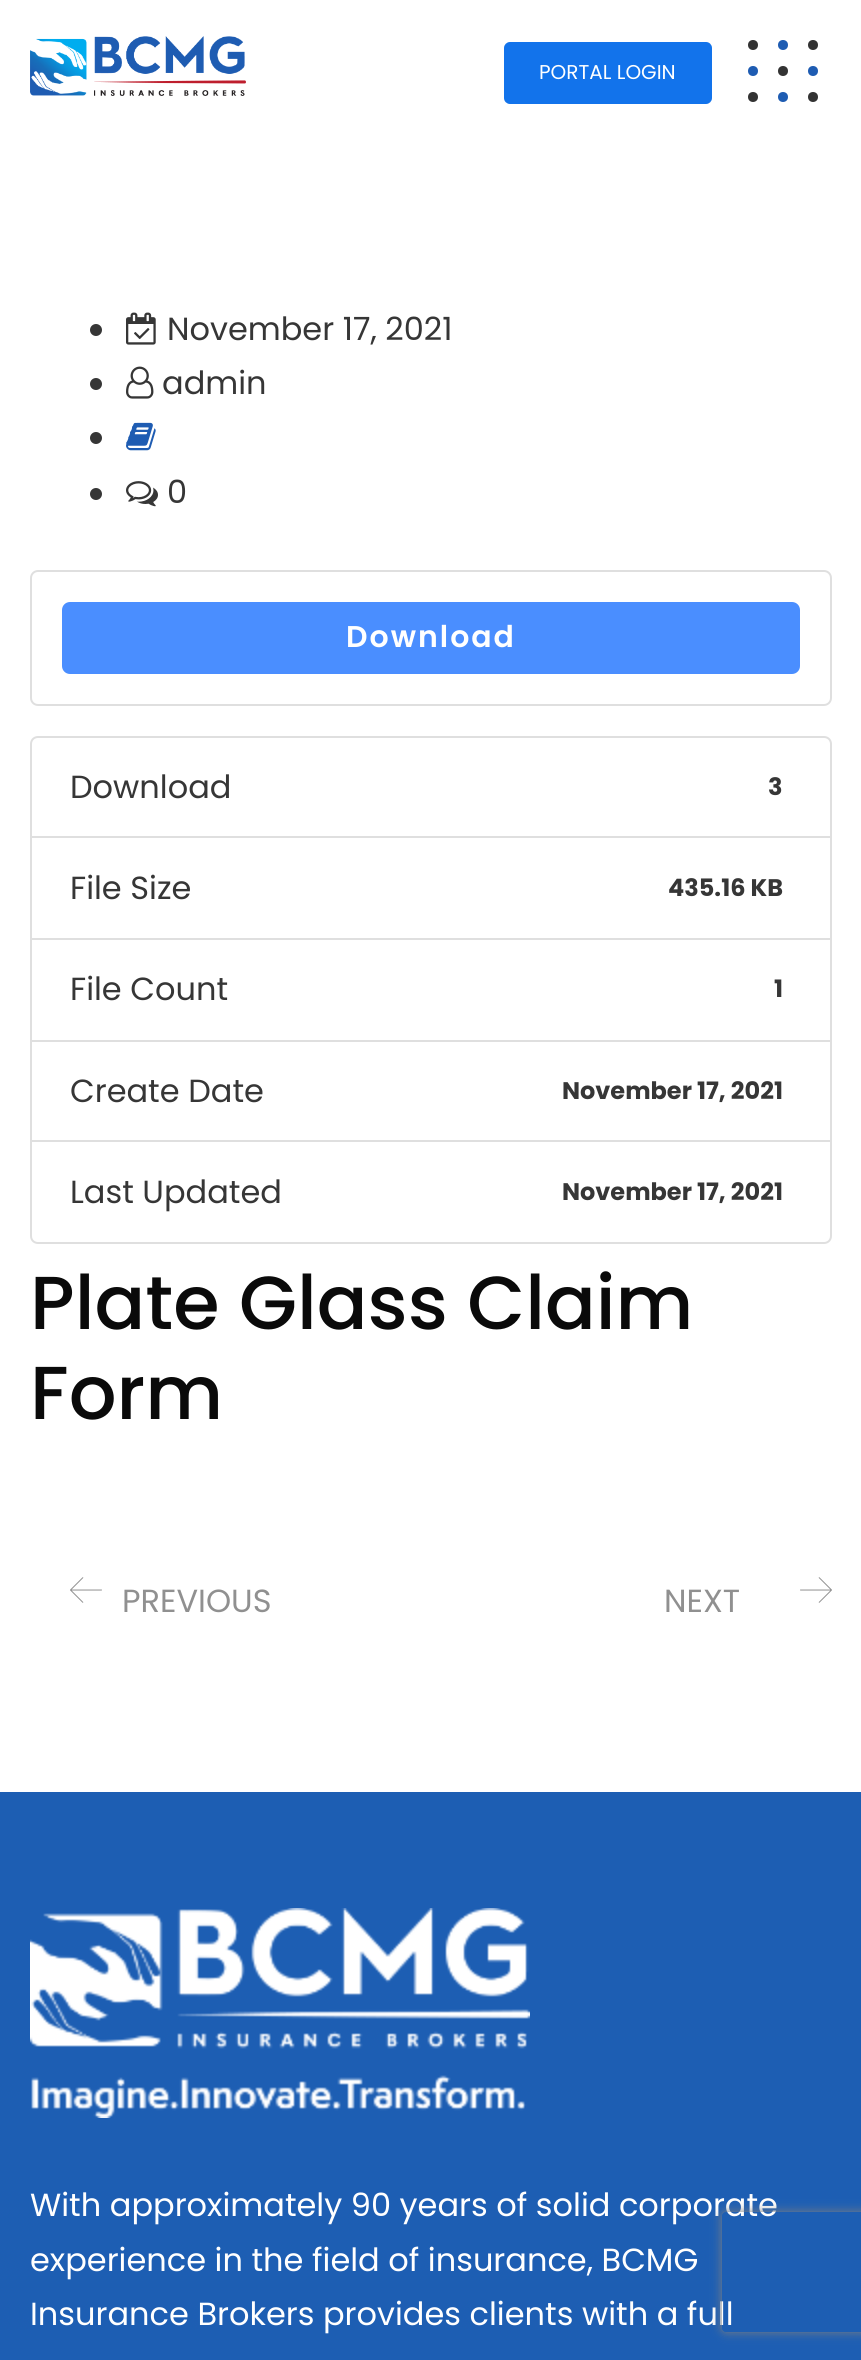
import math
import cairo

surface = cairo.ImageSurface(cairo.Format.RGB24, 861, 2360)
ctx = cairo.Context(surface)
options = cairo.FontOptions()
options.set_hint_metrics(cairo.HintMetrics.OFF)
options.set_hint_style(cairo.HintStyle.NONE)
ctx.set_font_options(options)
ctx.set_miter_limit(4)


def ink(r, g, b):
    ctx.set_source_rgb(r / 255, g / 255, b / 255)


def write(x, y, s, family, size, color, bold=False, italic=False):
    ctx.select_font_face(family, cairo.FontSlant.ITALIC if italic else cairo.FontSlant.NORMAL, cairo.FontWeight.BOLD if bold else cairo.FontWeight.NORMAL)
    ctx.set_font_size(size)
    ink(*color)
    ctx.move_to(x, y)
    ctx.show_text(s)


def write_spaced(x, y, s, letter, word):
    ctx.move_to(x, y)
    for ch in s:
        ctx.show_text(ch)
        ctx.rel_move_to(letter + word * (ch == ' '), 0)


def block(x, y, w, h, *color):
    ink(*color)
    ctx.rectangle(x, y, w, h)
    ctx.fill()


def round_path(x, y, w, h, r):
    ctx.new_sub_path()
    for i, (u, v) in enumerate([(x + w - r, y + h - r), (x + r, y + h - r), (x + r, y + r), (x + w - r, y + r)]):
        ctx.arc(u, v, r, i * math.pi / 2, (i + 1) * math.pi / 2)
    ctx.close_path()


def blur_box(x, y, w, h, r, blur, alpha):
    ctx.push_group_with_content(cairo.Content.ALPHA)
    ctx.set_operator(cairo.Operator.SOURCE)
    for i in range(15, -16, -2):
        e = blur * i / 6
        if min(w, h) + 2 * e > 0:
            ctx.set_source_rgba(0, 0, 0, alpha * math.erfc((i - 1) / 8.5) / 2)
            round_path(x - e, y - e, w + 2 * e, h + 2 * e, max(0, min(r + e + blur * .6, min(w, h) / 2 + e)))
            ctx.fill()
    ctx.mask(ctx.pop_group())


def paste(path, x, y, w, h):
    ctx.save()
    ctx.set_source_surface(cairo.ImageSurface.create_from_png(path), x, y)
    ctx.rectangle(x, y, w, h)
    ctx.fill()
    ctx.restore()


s1 = dict(family="Poppins", size=20, color=(255, 255, 255))
s2 = dict(family="Poppins", size=32, color=(54, 54, 54))
s3 = dict(family="Poppins", size=24, color=(54, 54, 54), bold=True)
s4 = dict(family="Poppins Medium", size=75, color=(10, 10, 10))
s5 = dict(family="Poppins", size=32, color=(144, 144, 144))
s6 = dict(family="Poppins", size=32, color=(255, 255, 255))

ink(255, 255, 255)
ctx.paint()
paste("pic1.png", 30, 36, 216, 60)
ink(18, 115, 235)
round_path(506, 44, 204, 58, 4)
ctx.fill_preserve()
ctx.set_line_width(4)
ctx.stroke()
write(539, 79, "PORTAL LOGIN", **s1)
ink(51, 51, 51)
ctx.new_path()
ctx.arc(753, 45, 5, 0, 2 * math.pi)
ctx.fill()
ink(30, 92, 178)
ctx.arc(783, 45, 5, 0, 2 * math.pi)
ctx.fill()
ink(51, 51, 51)
ctx.arc(813, 45, 5, 0, 2 * math.pi)
ctx.fill()
ink(30, 92, 178)
ctx.arc(753, 71, 5, 0, 2 * math.pi)
ctx.fill()
ink(51, 51, 51)
ctx.arc(783, 71, 5, 0, 2 * math.pi)
ctx.fill()
ink(30, 92, 178)
ctx.arc(813, 71, 5, 0, 2 * math.pi)
ctx.fill()
ink(51, 51, 51)
ctx.arc(753, 97, 5, 0, 2 * math.pi)
ctx.fill()
ink(30, 92, 178)
ctx.arc(783, 97, 5, 0, 2 * math.pi)
ctx.fill()
ink(51, 51, 51)
ctx.arc(813, 97, 5, 0, 2 * math.pi)
ctx.fill()
ink(54, 54, 54)
ctx.arc(96, 330, 6, 0, 2 * math.pi)
ctx.fill()
paste("pic2.png", 126, 312, 30, 33)
write(167, 340, "November 17, 2021", **s2)
ctx.new_path()
ctx.arc(96, 384, 6, 0, 2 * math.pi)
ctx.fill()
paste("pic3.png", 126, 366, 28, 33)
write(162, 394, "admin", **s2)
ctx.new_path()
ctx.arc(96, 438, 6, 0, 2 * math.pi)
ctx.fill()
paste("pic4.png", 126, 422, 30, 29)
ctx.arc(96, 494, 6, 0, 2 * math.pi)
ctx.fill()
paste("pic5.png", 126, 481, 32, 26)
write(167, 503, "0", **s2)
round_path(31, 571, 800, 134, 7)
ink(223, 223, 223)
ctx.set_line_width(2)
ctx.stroke()
ink(74, 142, 255)
round_path(63, 603, 736, 70, 7)
ctx.fill_preserve()
ctx.stroke()
ctx.select_font_face("Poppins SemiBold")
ctx.set_font_size(30)
ink(255, 255, 255)
write_spaced(346, 647, "Download", 2, 0)
ctx.new_path()
ctx.move_to(38, 737)
ctx.line_to(824, 737)
ctx.curve_to(828, 737, 831, 740, 831, 744)
ctx.line_to(831, 837)
ctx.line_to(31, 837)
ctx.line_to(31, 744)
ctx.curve_to(31, 740, 34, 737, 38, 737)
ctx.close_path()
ink(223, 223, 223)
ctx.stroke()
write(70, 798, "Download", **s2)
write(768, 795, "3", **s3)
ctx.rectangle(31, 837, 800, 102)
ink(223, 223, 223)
ctx.stroke()
write(70, 899, "File Size", **s2)
write(668, 896, "435.16 KB", **s3)
ctx.rectangle(31, 939, 800, 102)
ink(223, 223, 223)
ctx.stroke()
write(70, 1000, "File Count", **s2)
write(774, 997, "1", **s3)
ctx.rectangle(31, 1041, 800, 100)
ink(223, 223, 223)
ctx.stroke()
write(70, 1102, "Create Date", **s2)
write(562, 1099, "November 17, 2021", **s3)
ink(255, 255, 255)
ctx.new_path()
ctx.move_to(31, 1141)
ctx.line_to(831, 1141)
ctx.line_to(831, 1236)
ctx.curve_to(831, 1240, 828, 1243, 824, 1243)
ctx.line_to(38, 1243)
ctx.curve_to(34, 1243, 31, 1240, 31, 1236)
ctx.close_path()
ctx.fill_preserve()
ink(223, 223, 223)
ctx.stroke()
write(70, 1203, "Last Updated", **s2)
write(562, 1200, "November 17, 2021", **s3)
write(30, 1329, "Plate Glass Claim", **s4)
write(30, 1419, "Form", **s4)
paste("pic6.png", 70, 1577, 32, 26)
write(122, 1612, "PREVIOUS", **s5)
write(664, 1612, "NEXT", **s5)
paste("pic7.png", 800, 1577, 32, 26)
block(0, 1792, 861, 568, 29, 94, 179)
paste("pic8.png", 30, 1908, 500, 210)
write(30, 2216, "With approximately 90 years of solid corporate", **s6)
write(30, 2271, "experience in the field of insurance, BCMG", **s6)
write(30, 2325, "Insurance Brokers provides clients with a full", **s6)
ctx.save()
ctx.set_fill_rule(cairo.FillRule.EVEN_ODD)
ctx.new_path()
ctx.move_to(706, 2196)
ctx.line_to(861, 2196)
ctx.line_to(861, 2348)
ctx.line_to(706, 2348)
ctx.close_path()
ctx.move_to(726, 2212)
ctx.line_to(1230, 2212)
ctx.curve_to(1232, 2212, 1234, 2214, 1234, 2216)
ctx.line_to(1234, 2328)
ctx.curve_to(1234, 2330, 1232, 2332, 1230, 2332)
ctx.line_to(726, 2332)
ctx.curve_to(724, 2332, 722, 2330, 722, 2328)
ctx.line_to(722, 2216)
ctx.curve_to(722, 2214, 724, 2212, 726, 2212)
ctx.close_path()
ctx.clip()
ink(128, 128, 128)
blur_box(722, 2212, 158, 120, 4, 5, 1)
ctx.restore()
surface.write_to_png("screenshot.png")
